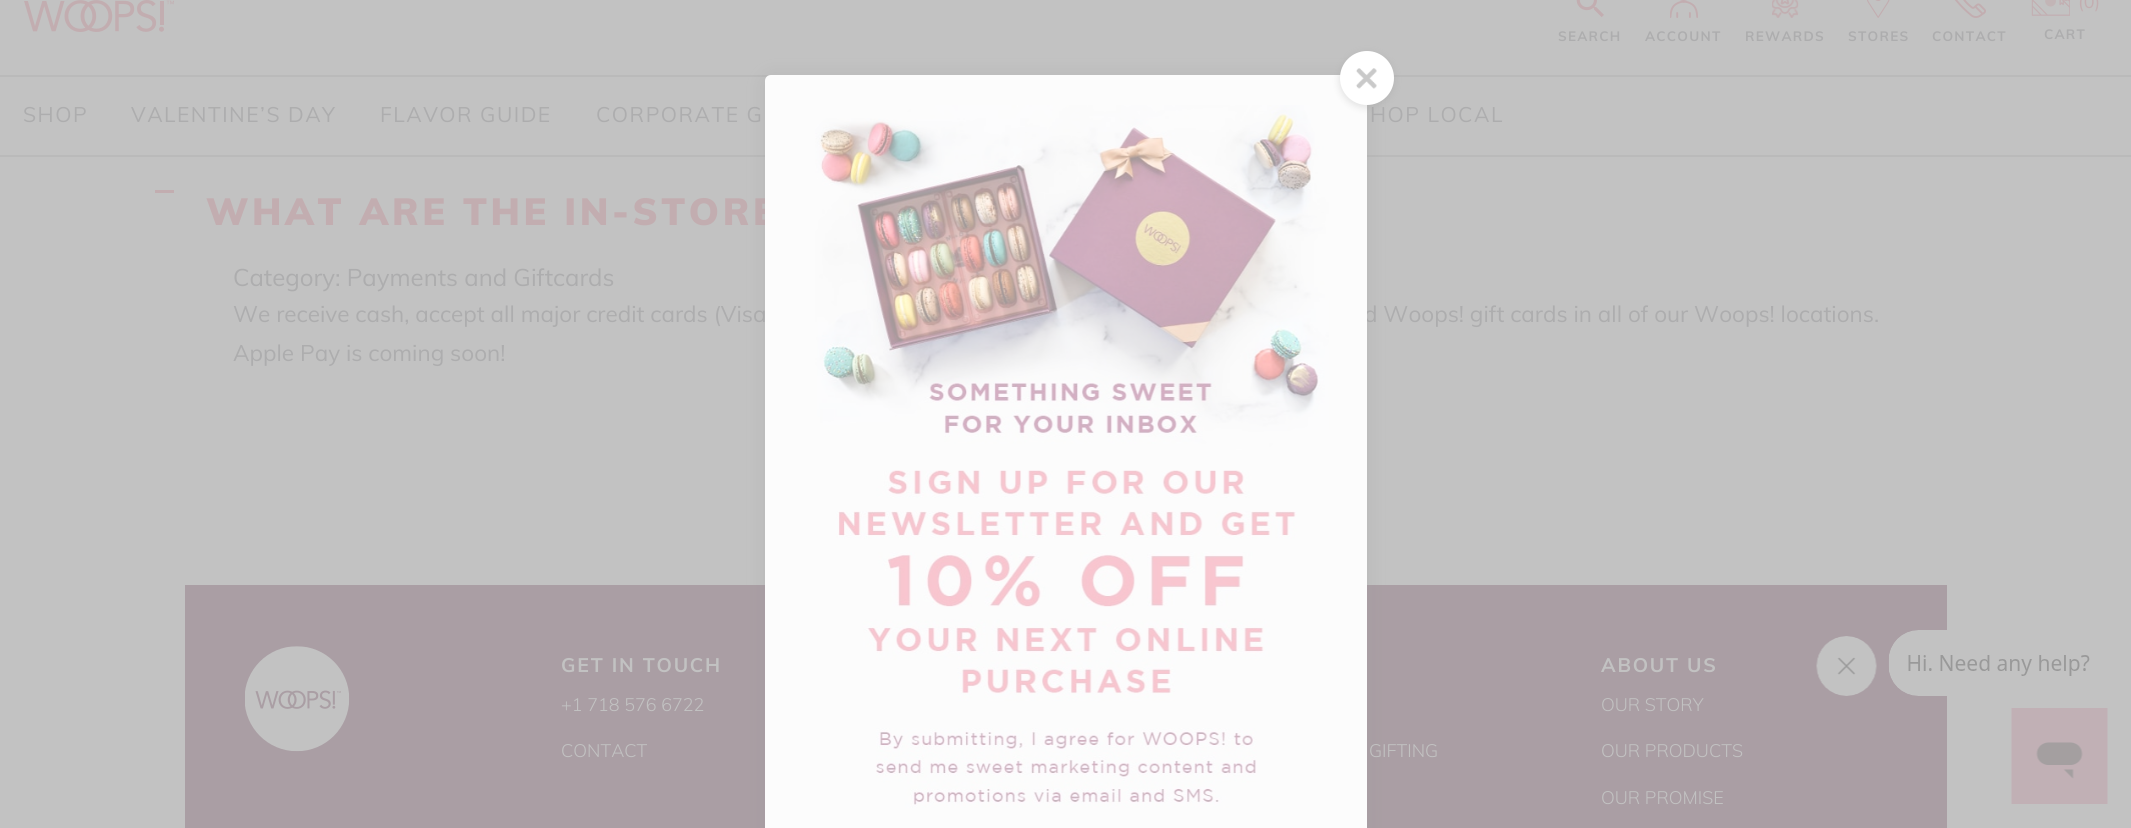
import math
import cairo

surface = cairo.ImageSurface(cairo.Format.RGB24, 2131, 828)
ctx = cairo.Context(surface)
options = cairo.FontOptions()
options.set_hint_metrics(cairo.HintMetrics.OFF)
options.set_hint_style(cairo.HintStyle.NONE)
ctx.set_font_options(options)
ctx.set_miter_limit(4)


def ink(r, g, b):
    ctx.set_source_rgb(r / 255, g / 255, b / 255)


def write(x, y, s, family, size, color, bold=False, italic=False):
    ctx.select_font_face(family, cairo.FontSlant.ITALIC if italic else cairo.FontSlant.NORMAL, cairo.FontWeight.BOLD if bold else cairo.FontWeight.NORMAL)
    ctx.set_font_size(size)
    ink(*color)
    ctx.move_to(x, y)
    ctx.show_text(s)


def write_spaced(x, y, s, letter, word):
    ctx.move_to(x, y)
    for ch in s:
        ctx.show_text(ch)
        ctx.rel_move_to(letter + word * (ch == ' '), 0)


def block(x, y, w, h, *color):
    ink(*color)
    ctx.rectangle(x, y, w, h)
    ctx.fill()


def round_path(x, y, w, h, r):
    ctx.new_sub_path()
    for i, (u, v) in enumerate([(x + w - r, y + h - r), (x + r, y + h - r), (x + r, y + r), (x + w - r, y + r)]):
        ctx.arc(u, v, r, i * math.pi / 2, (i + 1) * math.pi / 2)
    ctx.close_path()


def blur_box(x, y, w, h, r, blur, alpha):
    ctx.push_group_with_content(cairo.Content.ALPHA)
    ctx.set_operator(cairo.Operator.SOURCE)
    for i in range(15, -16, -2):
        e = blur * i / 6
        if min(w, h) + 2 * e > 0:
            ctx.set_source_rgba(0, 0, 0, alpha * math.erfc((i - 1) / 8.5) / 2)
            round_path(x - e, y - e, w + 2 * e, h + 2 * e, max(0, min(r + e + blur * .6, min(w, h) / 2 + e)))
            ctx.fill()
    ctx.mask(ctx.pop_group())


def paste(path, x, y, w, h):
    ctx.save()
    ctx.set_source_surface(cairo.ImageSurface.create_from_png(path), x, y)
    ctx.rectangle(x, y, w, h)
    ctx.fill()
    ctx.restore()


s1 = dict(family="Muli", size=18, color=(194, 173, 176))
s2 = dict(family="Muli", size=24, color=(173, 173, 174))
s3 = dict(family="Muli", size=22.5, color=(173, 173, 174))
s4 = dict(family="Muli Light", size=18, color=(194, 194, 194))

ink(194, 194, 194)
ctx.paint()
block(0, 75, 2131, 2, 186, 186, 186)
paste("pic1.png", 24, 0, 150, 32)
paste("pic2.png", 1576, 0, 28, 18)
ctx.select_font_face("Muli", cairo.FontSlant.NORMAL, cairo.FontWeight.BOLD)
ctx.set_font_size(13.5)
ink(173, 173, 174)
write_spaced(1558, 41, "SEARCH", 1.25, 0)
paste("pic3.png", 1670, 0, 28, 18)
write_spaced(1645, 41, "ACCOUNT", 1.25, 0)
paste("pic4.png", 1772, 0, 27, 18)
write_spaced(1745, 41, "REWARDS", 1.25, 0)
paste("pic5.png", 1867, 0, 23, 18)
write_spaced(1848, 41, "STORES", 1.25, 0)
paste("pic6.png", 1954, 0, 32, 18)
write_spaced(1932, 41, "CONTACT", 1.25, 0)
paste("pic7.png", 2031, 0, 39, 16)
write(2078, 8, "(0)", **s1)
ctx.select_font_face("Muli", cairo.FontSlant.NORMAL, cairo.FontWeight.BOLD)
ctx.set_font_size(13.5)
ink(173, 173, 174)
write_spaced(2044, 39, "CART", 1.25, 0)
block(0, 155, 2131, 2, 186, 186, 186)
ctx.select_font_face("Muli")
ctx.set_font_size(21)
ink(173, 173, 174)
write_spaced(23, 122, "SHOP", 1.5, 0)
write_spaced(131, 122, "VALENTINE’S DAY", 1.5, 0)
write_spaced(380, 122, "FLAVOR GUIDE", 1.5, 0)
write_spaced(596, 122, "CORPORATE G", 1.5, 0)
write_spaced(1370, 122, "HOP LOCAL", 1.5, 0)
block(155, 190, 19, 3, 194, 173, 176)
ctx.select_font_face("Muli Black")
ctx.set_font_size(37.5)
write_spaced(206, 225, "WHAT ARE THE IN-STORE", 3.6, 0)
write(233, 286, "Category: Payments and Giftcards", **s2)
write(233, 322, "We receive cash, accept all major credit cards (Visa", **s3)
write(1364, 322, "d Woops! gift cards in all of our Woops! locations.", **s3)
write(233, 361, "Apple Pay is coming soon!", **s3)
block(185, 585, 1762, 243, 170, 158, 164)
ink(153, 153, 153)
blur_box(765, 77, 602, 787, 6, 10, 0.3)
ink(252, 252, 252)
ctx.new_path()
ctx.move_to(771, 75)
ctx.line_to(1361, 75)
ctx.curve_to(1364.5, 75, 1367, 77.5, 1367, 81)
ctx.line_to(1367, 828)
ctx.line_to(765, 828)
ctx.line_to(765, 81)
ctx.curve_to(765, 77.5, 767.5, 75, 771, 75)
ctx.close_path()
ctx.fill()
paste("pic9.png", 815, 105, 514, 703)
ink(153, 153, 153)
blur_box(1340, 53, 54, 54, 27, 4, 0.3)
ink(255, 255, 255)
ctx.arc(1367, 78, 27, 0, 2 * math.pi)
ctx.fill()
paste("pic8.png", 1355, 68, 22, 21)
paste("pic10.png", 1816, 636, 61, 60)
paste("pic11.png", 1888, 630, 202, 66)
paste("pic12.png", 2011, 708, 97, 96)
paste("pic13.png", 245, 646, 105, 106)
ctx.select_font_face("Muli", cairo.FontSlant.NORMAL, cairo.FontWeight.BOLD)
ctx.set_font_size(19.5)
ink(194, 194, 194)
write_spaced(561, 672, "GET IN TOUCH", 1.8, 0)
write(561, 711, "+1 718 576 6722", **s4)
write(561, 757, "CONTACT", **s4)
write(1369, 757, "GIFTING", **s4)
ctx.select_font_face("Muli", cairo.FontSlant.NORMAL, cairo.FontWeight.BOLD)
ctx.set_font_size(19.5)
write_spaced(1601, 672, "ABOUT US", 1.8, 0)
write(1601, 711, "OUR STORY", **s4)
write(1601, 757, "OUR PRODUCTS", **s4)
write(1601, 804, "OUR PROMISE", **s4)
surface.write_to_png("screenshot.png")
